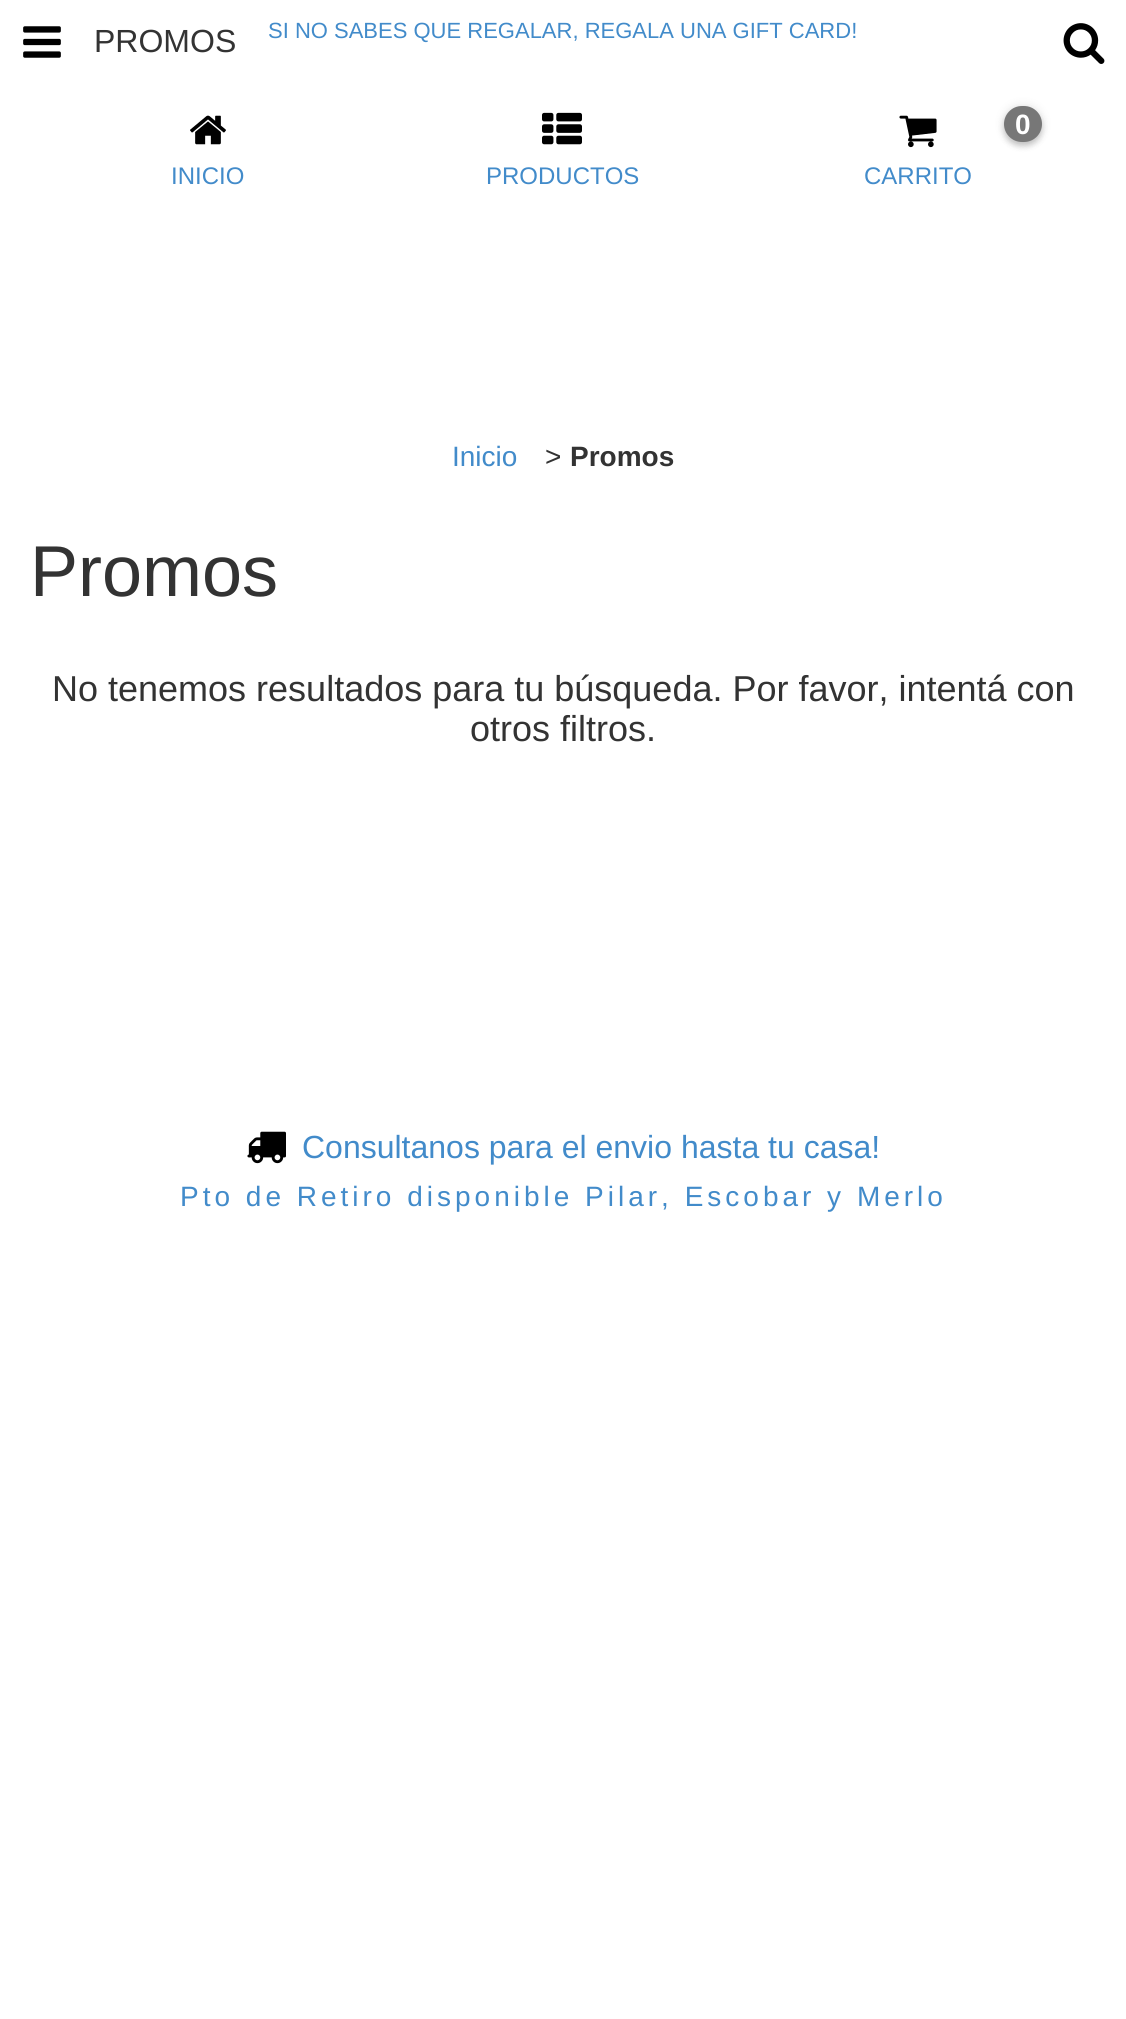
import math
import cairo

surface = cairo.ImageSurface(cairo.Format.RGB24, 1126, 2019)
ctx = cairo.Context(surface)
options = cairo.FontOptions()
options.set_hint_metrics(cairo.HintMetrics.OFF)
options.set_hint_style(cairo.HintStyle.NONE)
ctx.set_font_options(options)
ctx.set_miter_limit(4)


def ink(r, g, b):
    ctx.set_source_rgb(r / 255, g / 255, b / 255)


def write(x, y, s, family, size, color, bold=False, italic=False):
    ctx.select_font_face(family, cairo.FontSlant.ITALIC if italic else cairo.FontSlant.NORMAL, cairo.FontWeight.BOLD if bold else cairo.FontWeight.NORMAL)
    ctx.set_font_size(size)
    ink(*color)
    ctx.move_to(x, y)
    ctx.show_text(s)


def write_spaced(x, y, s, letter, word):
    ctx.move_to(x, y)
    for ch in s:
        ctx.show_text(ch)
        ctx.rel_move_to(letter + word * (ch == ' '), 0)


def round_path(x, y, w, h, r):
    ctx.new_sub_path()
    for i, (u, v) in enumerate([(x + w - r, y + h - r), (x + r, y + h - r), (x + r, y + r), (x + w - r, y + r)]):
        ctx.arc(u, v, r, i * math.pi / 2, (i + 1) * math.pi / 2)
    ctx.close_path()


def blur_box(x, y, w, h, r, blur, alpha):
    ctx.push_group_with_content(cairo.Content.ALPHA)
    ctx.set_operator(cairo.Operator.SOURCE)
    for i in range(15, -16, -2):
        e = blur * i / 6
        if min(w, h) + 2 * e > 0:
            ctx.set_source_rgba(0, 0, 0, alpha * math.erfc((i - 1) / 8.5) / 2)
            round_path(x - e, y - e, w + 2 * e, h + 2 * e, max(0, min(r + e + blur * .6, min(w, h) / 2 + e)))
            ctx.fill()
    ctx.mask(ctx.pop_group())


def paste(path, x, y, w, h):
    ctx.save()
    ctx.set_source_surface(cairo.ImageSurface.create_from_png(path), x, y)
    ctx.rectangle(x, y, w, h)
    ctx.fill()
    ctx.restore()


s1 = dict(family="Liberation Sans", size=22, color=(66, 139, 202))
s2 = dict(family="Liberation Sans", size=32, color=(51, 51, 51))
s3 = dict(family="Liberation Sans", size=24, color=(66, 139, 202))
s4 = dict(family="Liberation Sans", size=28, color=(255, 255, 255), bold=True)
s5 = dict(family="Liberation Sans", size=28, color=(66, 139, 202))
s6 = dict(family="Liberation Sans", size=28, color=(51, 51, 51))
s7 = dict(family="Liberation Sans", size=28, color=(51, 51, 51), bold=True)
s8 = dict(family="Liberation Sans", size=72, color=(51, 51, 51))
s9 = dict(family="Liberation Sans", size=36, color=(51, 51, 51))
s10 = dict(family="Liberation Sans", size=32, color=(66, 139, 202))

ink(255, 255, 255)
ctx.paint()
write(268, 38, "SI NO SABES QUE REGALAR, REGALA UNA GIFT CARD!", **s1)
paste("pic1.png", 23, 26, 38, 32)
write(94, 52, "PROMOS", **s2)
paste("pic2.png", 1063, 23, 42, 41)
paste("pic3.png", 190, 115, 36, 30)
write(171, 184, "INICIO", **s3)
paste("pic4.png", 542, 112, 40, 33)
write(486, 184, "PRODUCTOS", **s3)
paste("pic5.png", 899, 115, 38, 33)
ink(0, 0, 0)
blur_box(1004, 110, 38, 36, 18, 3, 0.2)
blur_box(1004, 106, 38, 36, 18, 5, 0.1)
ink(119, 119, 119)
round_path(1004, 106, 38, 36, 18)
ctx.fill()
write(1015, 134, "0", **s4)
write(864, 184, "CARRITO", **s3)
write(452, 466, "Inicio", **s5)
write(545, 466, ">", **s6)
write(570, 466, "Promos", **s7)
write(30, 596, "Promos", **s8)
write(52, 701, "No tenemos resultados para tu búsqueda. Por favor, intentá con", **s9)
write(470, 741, "otros filtros.", **s9)
paste("pic6.png", 247, 1131, 39, 33)
write(302, 1158, "Consultanos para el envio hasta tu casa!", **s10)
ctx.set_font_size(28)
write_spaced(180, 1206, "Pto de Retiro disponible Pilar, Escobar y Merlo", 4, 0)
surface.write_to_png("screenshot.png")
